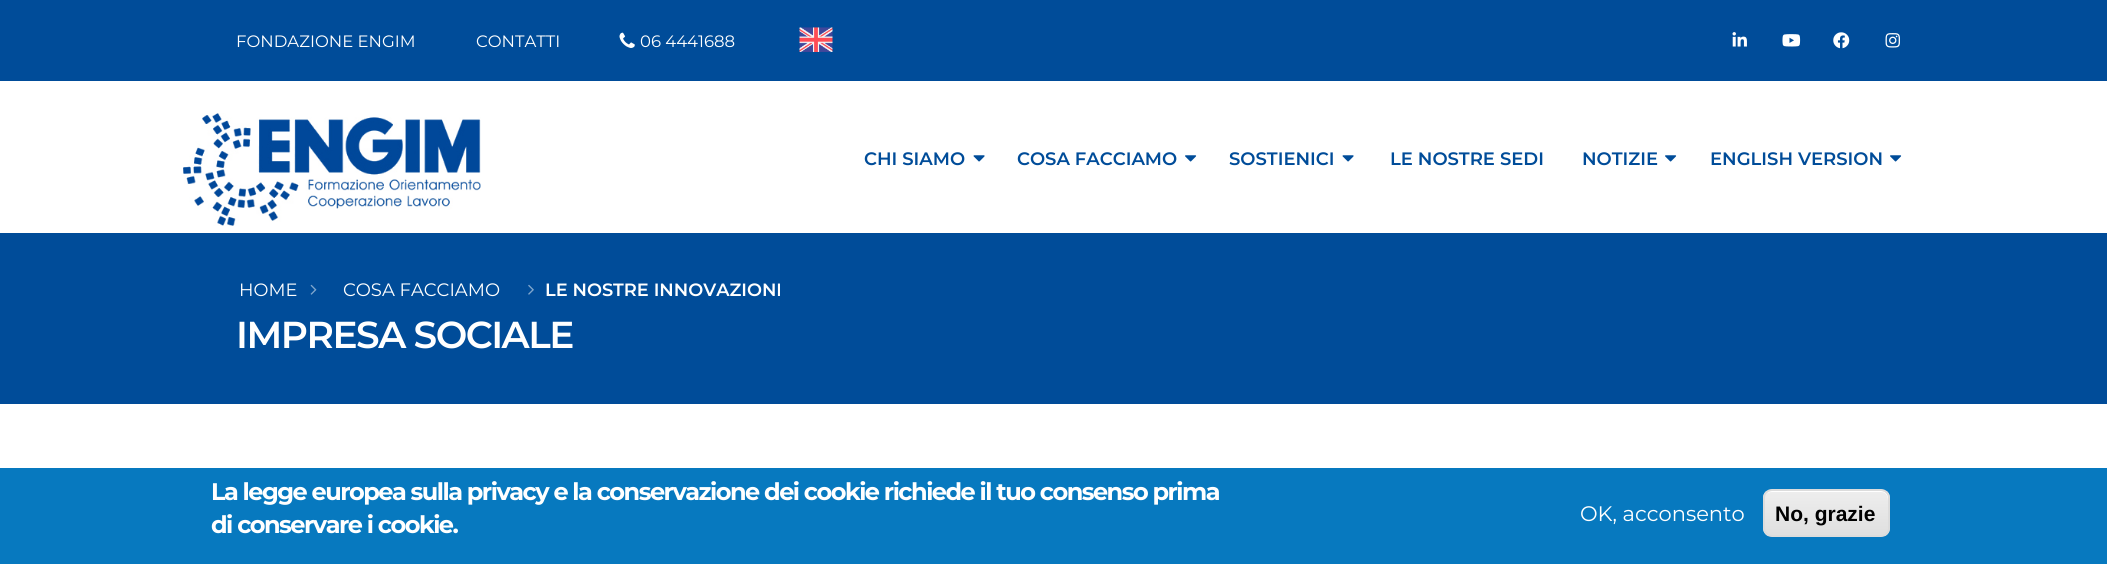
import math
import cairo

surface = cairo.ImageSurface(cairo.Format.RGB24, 2107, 564)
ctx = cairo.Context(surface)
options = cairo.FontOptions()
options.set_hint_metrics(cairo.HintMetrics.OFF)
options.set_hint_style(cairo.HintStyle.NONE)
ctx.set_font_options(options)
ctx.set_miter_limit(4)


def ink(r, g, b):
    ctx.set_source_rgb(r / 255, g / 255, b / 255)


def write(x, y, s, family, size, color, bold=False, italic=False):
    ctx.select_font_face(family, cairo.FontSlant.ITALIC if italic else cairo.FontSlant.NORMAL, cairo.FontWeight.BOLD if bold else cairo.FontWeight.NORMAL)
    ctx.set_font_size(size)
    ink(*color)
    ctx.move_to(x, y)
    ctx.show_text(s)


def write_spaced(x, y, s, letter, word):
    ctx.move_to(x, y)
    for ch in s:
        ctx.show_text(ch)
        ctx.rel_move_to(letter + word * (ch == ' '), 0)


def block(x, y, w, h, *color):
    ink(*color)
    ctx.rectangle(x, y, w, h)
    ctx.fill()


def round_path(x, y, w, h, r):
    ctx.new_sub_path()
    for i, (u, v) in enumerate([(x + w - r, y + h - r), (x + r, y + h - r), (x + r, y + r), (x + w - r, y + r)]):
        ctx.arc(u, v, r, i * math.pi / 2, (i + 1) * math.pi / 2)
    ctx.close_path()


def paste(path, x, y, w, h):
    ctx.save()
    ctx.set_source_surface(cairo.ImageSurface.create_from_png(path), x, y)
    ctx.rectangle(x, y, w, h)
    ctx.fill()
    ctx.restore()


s1 = dict(family="Montserrat", size=16.5, color=(255, 255, 255))
s2 = dict(family="Montserrat SemiBold", size=18, color=(0, 76, 153))
s3 = dict(family="Montserrat", size=17.8, color=(255, 255, 255))
s4 = dict(family="Montserrat", size=18, color=(255, 255, 255))
s5 = dict(family="Montserrat SemiBold", size=17.8, color=(255, 255, 255))
s6 = dict(family="Montserrat", size=21, color=(255, 255, 255))
s7 = dict(family="Liberation Sans", size=21, color=(0, 0, 0), bold=True)

ink(255, 255, 255)
ctx.paint()
block(0, 0, 2107, 81, 0, 76, 153)
write(236, 47, "FONDAZIONE ENGIM", **s1)
write(476, 47, "CONTATTI", **s1)
paste("pic1.png", 619, 32, 16, 16)
write(640, 47, "06 4441688", **s1)
paste("pic2.png", 799, 27, 34, 25)
paste("pic3.png", 1732, 32, 15, 15)
paste("pic4.png", 1782, 34, 19, 13)
paste("pic5.png", 1833, 32, 17, 17)
paste("pic6.png", 1885, 33, 15, 15)
paste("pic7.png", 183, 113, 298, 113)
write(864, 165, "CHI SIAMO", **s2)
paste("pic8.png", 973, 155, 12, 7)
write(1017, 165, "COSA FACCIAMO", **s2)
paste("pic9.png", 1185, 155, 12, 7)
write(1229, 165, "SOSTIENICI", **s2)
paste("pic8.png", 1342, 155, 12, 7)
write(1390, 165, "LE NOSTRE SEDI", **s2)
write(1582, 165, "NOTIZIE", **s2)
paste("pic9.png", 1665, 155, 12, 7)
write(1710, 165, "ENGLISH VERSION", **s2)
paste("pic9.png", 1890, 155, 12, 7)
block(0, 233, 2107, 171, 0, 76, 153)
write(239, 296, "HOME", **s3)
paste("pic10.png", 310, 284, 7, 11)
write(343, 296, "COSA FACCIAMO", **s4)
paste("pic11.png", 528, 284, 6, 11)
write(545, 296, "LE NOSTRE INNOVAZIONI", **s5)
ctx.set_font_size(37.5)
write_spaced(236, 348, "IMPRESA SOCIALE", -1.5, 0)
block(0, 468, 2107, 96, 7, 121, 191)
ctx.select_font_face("Montserrat", cairo.FontSlant.NORMAL, cairo.FontWeight.BOLD)
ctx.set_font_size(24)
ink(255, 255, 255)
write_spaced(211, 500, "La legge europea sulla privacy e la conservazione dei cookie richiede il tuo consenso prima", -1.5, 0)
write_spaced(211, 533, "di conservare i cookie.", -1.5, 0)
write(1580, 521, "OK, acconsento", **s6)
ctx.save()
round_path(1763, 489, 127, 48, 9)
ctx.clip()
gradient = cairo.LinearGradient(1826, 491, 1826, 536)
gradient.add_color_stop_rgba(0.05, 0.929, 0.929, 0.929, 1)
gradient.add_color_stop_rgba(1, 0.875, 0.875, 0.875, 1)
ctx.set_source(gradient)
ctx.rectangle(1763, 491, 127, 45)
ctx.fill()
ctx.restore()
ctx.new_path()
ctx.move_to(1772, 492)
ctx.line_to(1881, 492)
ctx.curve_to(1890, 492, 1888, 504, 1888, 510)
ctx.line_to(1888, 533)
ctx.curve_to(1888, 531, 1889, 530, 1889, 528)
ctx.line_to(1889, 499)
ctx.curve_to(1889, 495, 1885, 491, 1881, 491)
ctx.line_to(1772, 491)
ctx.curve_to(1768, 491, 1764, 495, 1764, 499)
ctx.line_to(1764, 500)
ctx.curve_to(1764, 495, 1767, 492, 1772, 492)
ctx.close_path()
ctx.fill()
round_path(1764, 490, 125, 46, 8)
ink(220, 220, 220)
ctx.stroke()
write(1775, 521, "No, grazie", **s7)
surface.write_to_png("screenshot.png")
